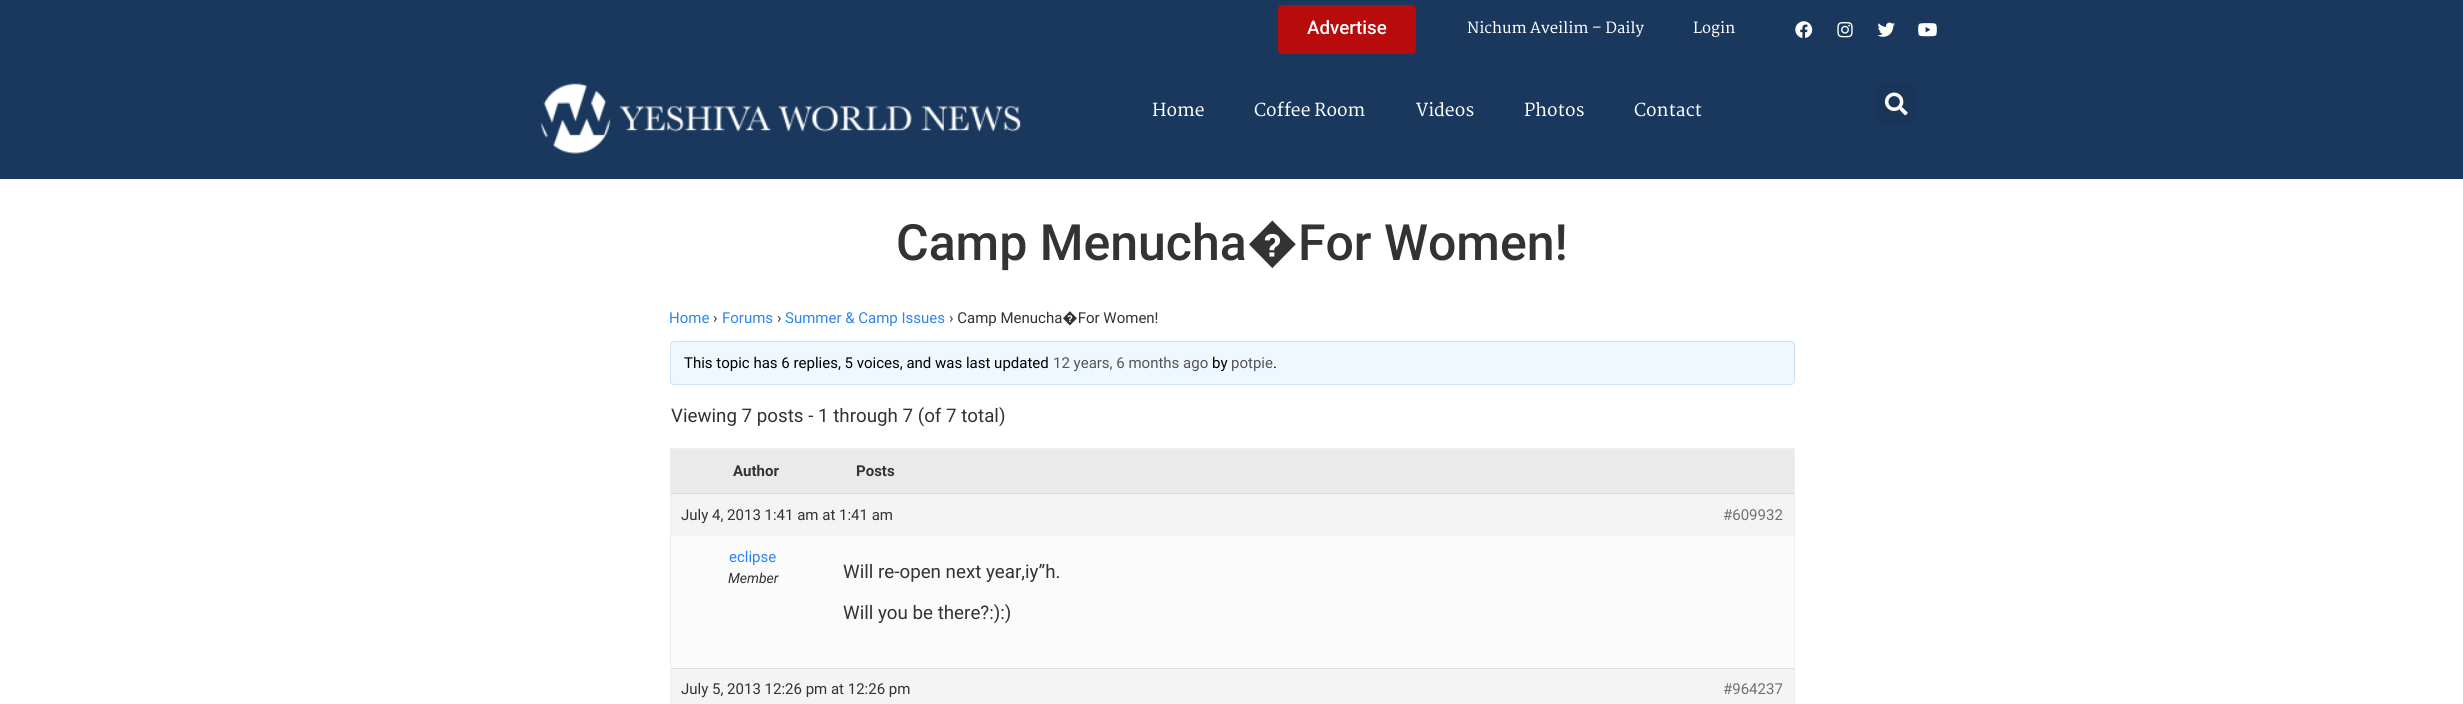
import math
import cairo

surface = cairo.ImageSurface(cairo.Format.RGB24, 2463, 704)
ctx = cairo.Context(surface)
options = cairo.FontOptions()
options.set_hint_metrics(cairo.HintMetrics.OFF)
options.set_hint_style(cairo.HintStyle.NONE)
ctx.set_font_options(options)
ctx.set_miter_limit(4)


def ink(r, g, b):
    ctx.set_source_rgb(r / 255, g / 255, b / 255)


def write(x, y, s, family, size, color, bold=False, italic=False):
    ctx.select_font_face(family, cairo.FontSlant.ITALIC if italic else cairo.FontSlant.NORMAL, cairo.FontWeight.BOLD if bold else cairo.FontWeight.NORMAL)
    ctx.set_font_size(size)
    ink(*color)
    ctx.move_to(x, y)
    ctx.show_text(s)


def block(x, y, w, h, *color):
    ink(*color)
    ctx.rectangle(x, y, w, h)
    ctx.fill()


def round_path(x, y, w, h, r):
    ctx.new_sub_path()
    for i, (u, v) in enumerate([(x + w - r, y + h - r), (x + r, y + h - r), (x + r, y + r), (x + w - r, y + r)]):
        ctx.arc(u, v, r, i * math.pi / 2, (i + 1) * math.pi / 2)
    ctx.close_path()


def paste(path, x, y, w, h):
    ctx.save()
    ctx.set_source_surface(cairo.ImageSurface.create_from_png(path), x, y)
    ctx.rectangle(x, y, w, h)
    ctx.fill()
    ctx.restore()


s1 = dict(family="Roboto Medium", size=18.75, color=(255, 255, 255))
s2 = dict(family="Martel SemiBold", size=15, color=(255, 255, 255))
s3 = dict(family="Martel SemiBold", size=17.5, color=(255, 255, 255))
s4 = dict(family="Roboto Medium", size=50, color=(51, 51, 51))
s5 = dict(family="Roboto", size=15, color=(43, 133, 244))
s6 = dict(family="Roboto", size=15, color=(51, 51, 51))
s7 = dict(family="Roboto", size=15, color=(0, 0, 0))
s8 = dict(family="Roboto", size=15, color=(85, 85, 85))
s9 = dict(family="Roboto", size=18.75, color=(51, 51, 51))
s10 = dict(family="Roboto", size=15, color=(51, 51, 51), bold=True)
s11 = dict(family="Roboto", size=15, color=(112, 112, 112))
s12 = dict(family="Roboto", size=14, color=(51, 51, 51), italic=True)

ink(255, 255, 255)
ctx.paint()
block(0, 0, 2463, 179, 26, 56, 93)
ink(184, 11, 11)
round_path(1278, 5, 138, 49, 4)
ctx.fill()
write(1307, 34, "Advertise", **s1)
write(1467, 33, "Nichum Aveilim – Daily", **s2)
write(1693, 33, "Login", **s2)
paste("pic1.png", 1795, 21, 18, 17)
paste("pic2.png", 1837, 22, 16, 16)
paste("pic3.png", 1877, 22, 18, 15)
paste("pic4.png", 1918, 23, 19, 14)
paste("pic5.png", 540, 83, 481, 71)
write(1152, 116, "Home", **s3)
write(1254, 116, "Coffee Room", **s3)
write(1416, 116, "Videos", **s3)
write(1524, 116, "Photos", **s3)
write(1634, 116, "Contact", **s3)
ink(25, 53, 88)
round_path(1875, 83, 41, 41, 4)
ctx.fill()
paste("pic6.png", 1884, 92, 24, 24)
write(896, 260, "Camp Menucha�For Women!", **s4)
write(669, 323, "Home", **s5)
write(713, 323, "›", **s6)
write(722, 323, "Forums", **s5)
write(777, 323, "›", **s6)
write(785, 323, "Summer & Camp Issues", **s5)
write(949, 323, "› Camp Menucha�For Women!", **s6)
ink(240, 248, 255)
round_path(670.5, 341.5, 1124, 43, 3.5)
ctx.fill_preserve()
ink(206, 225, 239)
ctx.set_line_width(1)
ctx.stroke()
write(684, 368, "This topic has 6 replies, 5 voices, and was last updated", **s7)
write(1053, 368, "12 years, 6 months ago", **s8)
write(1212, 368, "by", **s7)
write(1231, 368, "potpie", **s8)
write(1273, 368, ".", **s7)
write(671, 422, "Viewing 7 posts - 1 through 7 (of 7 total)", **s9)
ctx.rectangle(670.5, 448.5, 1124, 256)
ink(238, 238, 238)
ctx.stroke()
block(671, 450, 1123, 43, 234, 234, 234)
block(671, 449, 1123, 1, 238, 238, 238)
write(733, 476, "Author", **s10)
write(856, 476, "Posts", **s10)
block(671, 494, 1123, 42, 244, 244, 244)
block(671, 493, 1123, 1, 221, 221, 221)
write(681, 520, "July 4, 2013 1:41 am at 1:41 am", **s6)
write(1723, 520, "#609932", **s11)
block(671, 536, 1123, 132, 251, 251, 251)
write(729, 562, "eclipse", **s5)
write(728, 583, "Member", **s12)
write(843, 578, "Will re-open next year,iy”h.", **s9)
write(843, 619, "Will you be there?:):)", **s9)
block(671, 669, 1123, 35, 244, 244, 244)
block(671, 668, 1123, 1, 221, 221, 221)
write(681, 694, "July 5, 2013 12:26 pm at 12:26 pm", **s6)
write(1723, 694, "#964237", **s11)
surface.write_to_png("screenshot.png")
